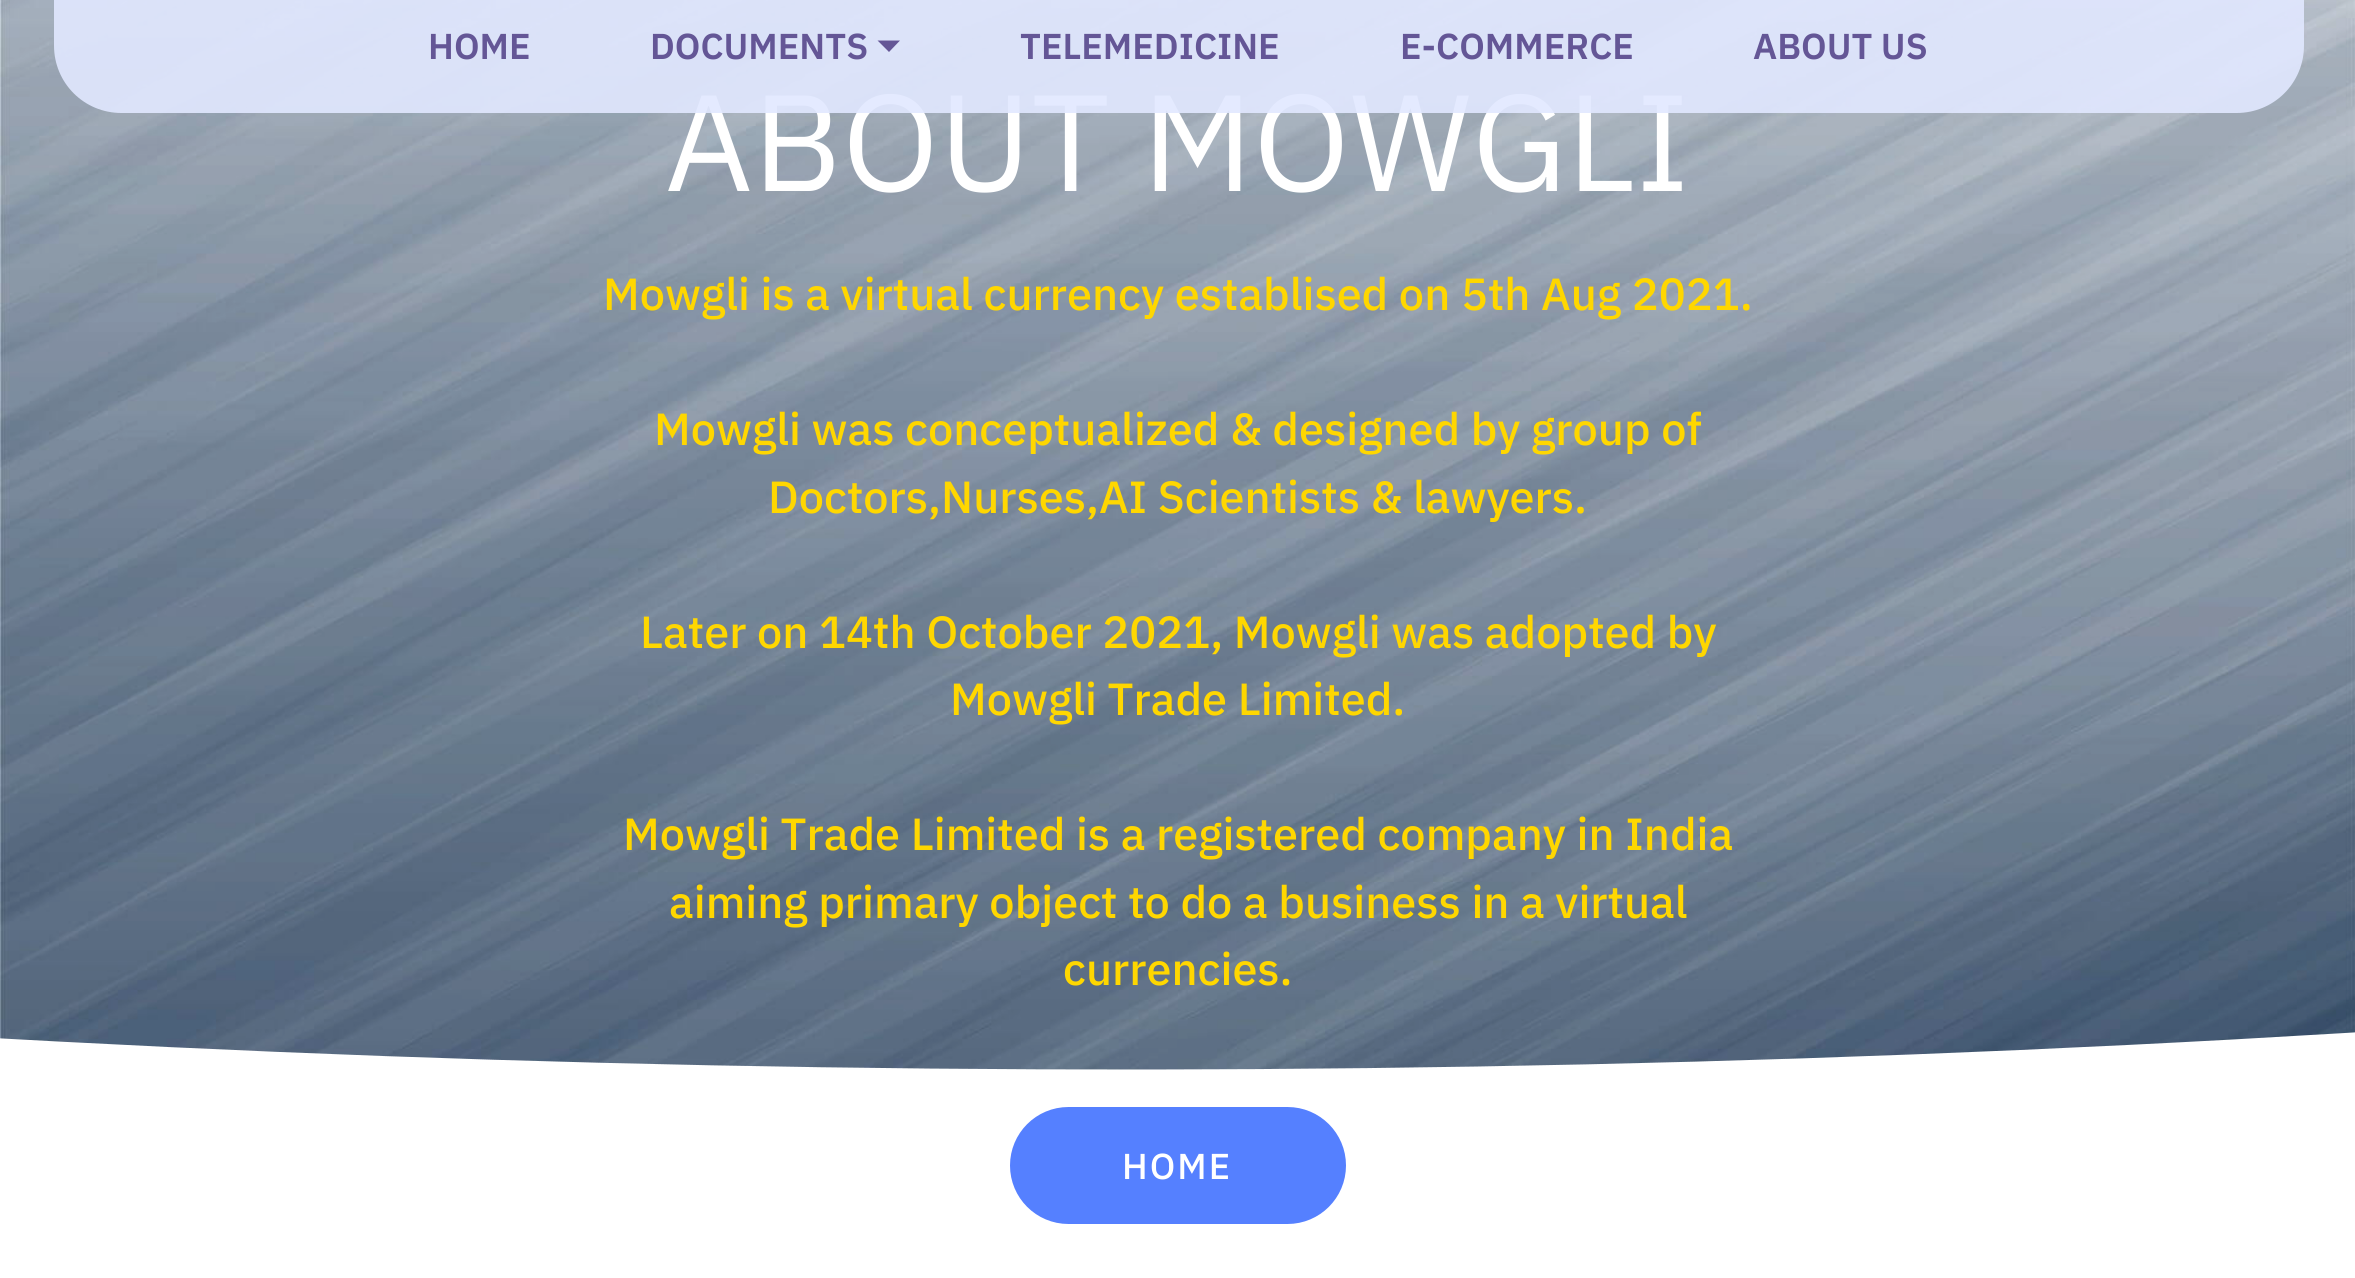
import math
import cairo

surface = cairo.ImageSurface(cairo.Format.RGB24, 2355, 1278)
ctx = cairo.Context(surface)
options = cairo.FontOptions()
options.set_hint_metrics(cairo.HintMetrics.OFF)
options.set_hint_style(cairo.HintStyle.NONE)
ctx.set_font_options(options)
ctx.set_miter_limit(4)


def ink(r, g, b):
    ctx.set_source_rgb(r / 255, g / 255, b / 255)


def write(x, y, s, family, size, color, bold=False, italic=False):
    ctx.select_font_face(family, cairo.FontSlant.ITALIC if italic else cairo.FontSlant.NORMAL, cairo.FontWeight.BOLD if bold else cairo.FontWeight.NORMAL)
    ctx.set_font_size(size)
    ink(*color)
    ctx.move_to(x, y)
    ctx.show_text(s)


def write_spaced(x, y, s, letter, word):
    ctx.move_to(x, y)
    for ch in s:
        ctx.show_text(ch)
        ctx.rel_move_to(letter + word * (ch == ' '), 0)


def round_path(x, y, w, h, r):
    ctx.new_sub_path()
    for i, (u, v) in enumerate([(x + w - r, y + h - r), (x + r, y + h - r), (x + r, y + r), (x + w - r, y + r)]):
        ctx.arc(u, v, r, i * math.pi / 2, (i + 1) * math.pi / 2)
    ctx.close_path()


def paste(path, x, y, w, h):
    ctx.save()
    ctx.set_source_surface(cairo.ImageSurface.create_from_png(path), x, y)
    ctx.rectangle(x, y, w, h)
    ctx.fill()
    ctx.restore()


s1 = dict(family="IBM Plex Sans", size=136.75, color=(255, 255, 255))
s2 = dict(family="IBM Plex Sans SemiBold", size=36, color=(100, 86, 150))
s3 = dict(family="IBM Plex Sans Medium", size=45, color=(255, 215, 0))

ink(255, 255, 255)
ctx.paint()
paste("pic1.png", 0, 0, 2355, 1070)
write(665, 191, "ABOUT MOWGLI", **s1)
ctx.set_source_rgba(0.882, 0.91, 1, 0.9)
ctx.new_path()
ctx.move_to(54, -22)
ctx.line_to(2304, -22)
ctx.line_to(2304, 45.5)
ctx.curve_to(2304, 83, 2274, 113, 2236.5, 113)
ctx.line_to(121.5, 113)
ctx.curve_to(84, 113, 54, 83, 54, 45.5)
ctx.close_path()
ctx.fill()
write(428, 59, "HOME", **s2)
write(650, 59, "DOCUMENTS", **s2)
ctx.new_path()
ctx.move_to(877.5, 40.5)
ctx.line_to(900, 40.5)
ctx.line_to(889, 52)
ctx.close_path()
ctx.fill()
write(1020, 59, "TELEMEDICINE", **s2)
write(1400, 59, "E-COMMERCE", **s2)
write(1753, 59, "ABOUT US", **s2)
write(603, 310, "Mowgli is a virtual currency establised on 5th Aug 2021.", **s3)
write(654, 445, "Mowgli was conceptualized & designed by group of", **s3)
write(768, 513, "Doctors,Nurses,AI Scientists & lawyers.", **s3)
write(640, 648, "Later on 14th October 2021, Mowgli was adopted by", **s3)
write(950, 715, "Mowgli Trade Limited.", **s3)
write(623, 850, "Mowgli Trade Limited is a registered company in India", **s3)
write(669, 918, "aiming primary object to do a business in a virtual", **s3)
write(1063, 985, "currencies.", **s3)
ink(255, 255, 255)
ctx.new_path()
ctx.move_to(-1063, 923)
ctx.line_to(-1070, 479)
ctx.close_path()
ctx.move_to(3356, 919)
ctx.line_to(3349, 474)
ctx.close_path()
ctx.move_to(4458, 769)
ctx.line_to(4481, 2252)
ctx.curve_to(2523, 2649, -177, 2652, -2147, 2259)
ctx.line_to(-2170, 776)
ctx.curve_to(-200, 1170, 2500, 1167, 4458, 769)
ctx.close_path()
ctx.move_to(1171, 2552)
ctx.line_to(1176, 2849)
ctx.close_path()
ctx.fill()
ink(85, 128, 255)
round_path(1012.5, 1109.5, 331, 112, 56)
ctx.fill_preserve()
ctx.set_line_width(5)
ctx.stroke()
ctx.set_font_size(36)
ink(255, 255, 255)
write_spaced(1122, 1179, "HOME", 2, 0)
surface.write_to_png("screenshot.png")
